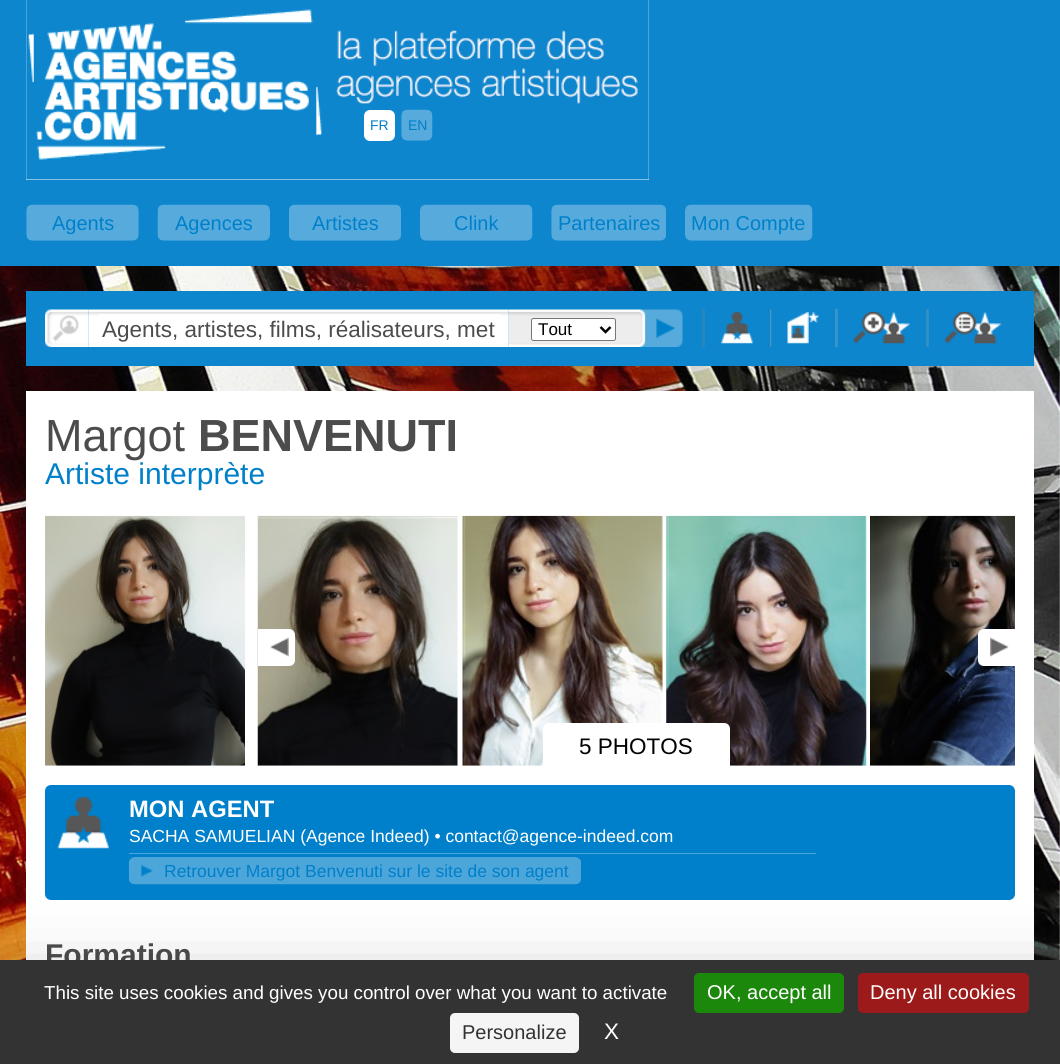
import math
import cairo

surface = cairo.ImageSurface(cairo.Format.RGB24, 1060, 1064)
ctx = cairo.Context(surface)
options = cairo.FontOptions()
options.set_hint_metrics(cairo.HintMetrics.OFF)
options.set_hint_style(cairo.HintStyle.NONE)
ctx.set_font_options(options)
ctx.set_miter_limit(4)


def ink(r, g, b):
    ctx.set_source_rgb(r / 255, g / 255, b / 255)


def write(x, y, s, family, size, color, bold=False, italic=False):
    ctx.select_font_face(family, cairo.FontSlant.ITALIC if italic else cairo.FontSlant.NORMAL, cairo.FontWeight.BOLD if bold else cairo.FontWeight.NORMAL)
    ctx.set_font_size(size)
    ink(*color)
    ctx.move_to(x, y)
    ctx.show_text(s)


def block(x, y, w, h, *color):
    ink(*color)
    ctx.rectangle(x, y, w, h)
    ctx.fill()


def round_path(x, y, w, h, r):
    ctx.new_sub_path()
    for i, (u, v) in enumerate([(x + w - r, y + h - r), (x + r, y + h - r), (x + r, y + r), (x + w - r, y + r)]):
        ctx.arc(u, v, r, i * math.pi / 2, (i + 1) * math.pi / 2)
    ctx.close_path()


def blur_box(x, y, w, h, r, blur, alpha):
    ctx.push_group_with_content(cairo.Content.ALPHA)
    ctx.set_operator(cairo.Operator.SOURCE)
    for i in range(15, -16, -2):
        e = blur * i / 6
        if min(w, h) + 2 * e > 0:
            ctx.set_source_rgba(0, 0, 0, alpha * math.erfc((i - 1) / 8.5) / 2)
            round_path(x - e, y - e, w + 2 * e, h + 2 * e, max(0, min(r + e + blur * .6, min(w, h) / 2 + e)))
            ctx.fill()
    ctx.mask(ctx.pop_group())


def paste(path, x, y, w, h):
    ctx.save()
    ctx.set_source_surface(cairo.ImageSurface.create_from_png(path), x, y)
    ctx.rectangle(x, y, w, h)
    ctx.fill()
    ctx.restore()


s1 = dict(family="Liberation Sans", size=14, color=(0, 128, 202))
s2 = dict(family="Liberation Sans", size=20, color=(0, 128, 202))
s3 = dict(family="Liberation Sans", size=22.5, color=(76, 76, 76))
s4 = dict(family="Liberation Sans", size=17, color=(0, 0, 0))
s5 = dict(family="Liberation Sans", size=45, color=(76, 76, 76))
s6 = dict(family="Liberation Sans", size=45, color=(76, 76, 76), bold=True)
s7 = dict(family="Liberation Sans", size=30, color=(0, 128, 202))
s8 = dict(family="Liberation Sans", size=22.5, color=(0, 0, 0))
s9 = dict(family="Liberation Sans", size=23.75, color=(255, 255, 255), bold=True)
s10 = dict(family="Liberation Sans", size=17.5, color=(255, 255, 255))
s11 = dict(family="Liberation Sans", size=17.5, color=(0, 128, 202))
s12 = dict(family="Liberation Sans", size=30, color=(76, 76, 76), bold=True)
s13 = dict(family="Liberation Sans", size=18.75, color=(255, 255, 255))
s14 = dict(family="Liberation Sans", size=20, color=(255, 255, 255))
s15 = dict(family="Liberation Sans", size=20, color=(51, 51, 51))
s16 = dict(family="Liberation Sans", size=22.5, color=(255, 255, 255))

ink(255, 255, 255)
ctx.paint()
paste("pic1.png", 0, 266, 1060, 694)
block(0, 0, 1060, 266, 13, 134, 205)
block(26, 0, 623, 180, 255, 255, 255)
paste("pic2.png", 26, 0, 623, 180)
round_path(364, 110, 31, 31, 6)
ctx.fill()
write(370, 130, "FR", **s1)
paste("pic3.png", 401, 109, 32, 32)
write(408, 130, "EN", **s1)
paste("pic4.png", 26, 204, 113, 37)
write(52, 230, "Agents", **s2)
paste("pic5.png", 157, 204, 113, 37)
write(175, 230, "Agences", **s2)
paste("pic6.png", 289, 204, 112, 37)
write(312, 230, "Artistes", **s2)
paste("pic7.png", 420, 204, 113, 37)
write(454, 230, "Clink", **s2)
paste("pic8.png", 551, 204, 115, 37)
write(558, 230, "Partenaires", **s2)
paste("pic9.png", 685, 204, 128, 37)
write(691, 230, "Mon Compte", **s2)
block(26, 291, 1008, 75, 13, 134, 205)
paste("pic10.png", 45, 309, 44, 38)
paste("pic11.png", 88, 309, 421, 38)
block(98, 314, 402, 31, 255, 255, 255)
write(102, 337, "Agents, artistes, films, réalisateurs, met", **s3)
paste("pic12.png", 508, 309, 132, 38)
ink(255, 255, 255)
round_path(531.5, 318.5, 84, 22, 2)
ctx.fill_preserve()
ink(118, 118, 118)
ctx.set_line_width(1)
ctx.stroke()
ctx.new_path()
ctx.move_to(600.5, 327)
ctx.line_to(605.5, 332)
ctx.line_to(610.5, 327)
ink(0, 0, 0)
ctx.set_line_width(2.5)
ctx.stroke()
write(538, 335, "Tout", **s4)
paste("pic13.png", 640, 309, 43, 38)
block(702, 309, 3, 38, 38, 134, 189)
paste("pic14.png", 721, 312, 32, 32)
paste("pic15.png", 768, 309, 4, 38)
paste("pic16.png", 787, 312, 32, 32)
block(835, 309, 3, 38, 51, 149, 204)
paste("pic17.png", 853, 312, 57, 32)
block(926, 309, 3, 38, 46, 144, 198)
paste("pic18.png", 945, 312, 57, 32)
block(26, 391, 1008, 569, 255, 255, 255)
write(45, 451, "Margot", **s5)
write(198, 451, "BENVENUTI", **s6)
write(45, 484, "Artiste interprète", **s7)
paste("pic19.png", 45, 515, 200, 251)
paste("pic20.png", 257, 515, 201, 251)
paste("pic21.png", 462, 515, 201, 251)
paste("pic22.png", 666, 515, 201, 251)
paste("pic23.png", 870, 515, 145, 251)
ink(255, 255, 255)
ctx.new_path()
ctx.move_to(258, 629)
ctx.line_to(289, 629)
ctx.curve_to(292.5, 629, 295, 631.5, 295, 635)
ctx.line_to(295, 660)
ctx.curve_to(295, 663.5, 292.5, 666, 289, 666)
ctx.line_to(258, 666)
ctx.close_path()
ctx.fill()
paste("pic24.png", 270, 637, 19, 20)
ctx.new_path()
ctx.move_to(984, 629)
ctx.line_to(1015, 629)
ctx.line_to(1015, 666)
ctx.line_to(984, 666)
ctx.curve_to(980.5, 666, 978, 663.5, 978, 660)
ctx.line_to(978, 635)
ctx.curve_to(978, 631.5, 980.5, 629, 984, 629)
ctx.close_path()
ctx.fill()
paste("pic25.png", 990, 637, 19, 20)
ctx.new_path()
ctx.move_to(549, 723)
ctx.line_to(724, 723)
ctx.curve_to(727.5, 723, 730, 725.5, 730, 729)
ctx.line_to(730, 766)
ctx.line_to(543, 766)
ctx.line_to(543, 729)
ctx.curve_to(543, 725.5, 545.5, 723, 549, 723)
ctx.close_path()
ctx.fill()
write(579, 754, "5 PHOTOS", **s8)
ink(0, 128, 202)
round_path(45, 785, 970, 115, 6)
ctx.fill()
paste("pic26.png", 57, 797, 52, 52)
write(129, 817, "MON AGENT", **s9)
write(129, 842, "SACHA SAMUELIAN (Agence Indeed) • contact@agence-indeed.com", **s10)
block(129, 853, 687, 1, 77, 166, 218)
paste("pic27.png", 128, 857, 453, 28)
paste("pic28.png", 141, 864, 12, 13)
write(164, 877, "Retrouver Margot Benvenuti sur le site de son agent", **s11)
write(45, 965, "Formation", **s12)
ink(0, 0, 0)
blur_box(0, 985, 1060, 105, 0, 37.5, 0.25)
block(0, 960, 1060, 104, 51, 51, 51)
write(44, 999, "This site uses cookies and gives you control over what you want to activate", **s13)
ink(27, 135, 11)
round_path(694, 973, 150, 40, 5)
ctx.fill()
write(707, 999, "OK, accept all", **s14)
ink(156, 26, 26)
round_path(858, 973, 171, 40, 5)
ctx.fill()
write(870, 999, "Deny all cookies", **s14)
ink(245, 245, 245)
round_path(450, 1013, 129, 40, 5)
ctx.fill()
write(462, 1039, "Personalize", **s15)
write(604, 1039, "X", **s16)
surface.write_to_png("screenshot.png")
